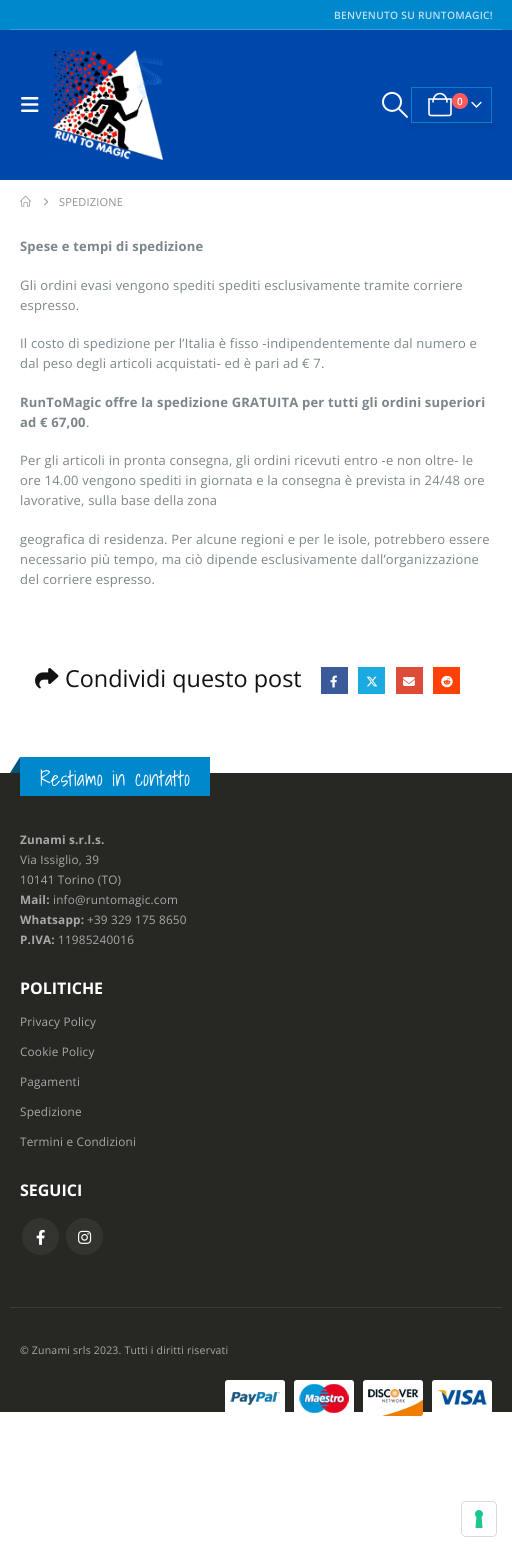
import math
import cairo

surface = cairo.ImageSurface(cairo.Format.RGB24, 512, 1552)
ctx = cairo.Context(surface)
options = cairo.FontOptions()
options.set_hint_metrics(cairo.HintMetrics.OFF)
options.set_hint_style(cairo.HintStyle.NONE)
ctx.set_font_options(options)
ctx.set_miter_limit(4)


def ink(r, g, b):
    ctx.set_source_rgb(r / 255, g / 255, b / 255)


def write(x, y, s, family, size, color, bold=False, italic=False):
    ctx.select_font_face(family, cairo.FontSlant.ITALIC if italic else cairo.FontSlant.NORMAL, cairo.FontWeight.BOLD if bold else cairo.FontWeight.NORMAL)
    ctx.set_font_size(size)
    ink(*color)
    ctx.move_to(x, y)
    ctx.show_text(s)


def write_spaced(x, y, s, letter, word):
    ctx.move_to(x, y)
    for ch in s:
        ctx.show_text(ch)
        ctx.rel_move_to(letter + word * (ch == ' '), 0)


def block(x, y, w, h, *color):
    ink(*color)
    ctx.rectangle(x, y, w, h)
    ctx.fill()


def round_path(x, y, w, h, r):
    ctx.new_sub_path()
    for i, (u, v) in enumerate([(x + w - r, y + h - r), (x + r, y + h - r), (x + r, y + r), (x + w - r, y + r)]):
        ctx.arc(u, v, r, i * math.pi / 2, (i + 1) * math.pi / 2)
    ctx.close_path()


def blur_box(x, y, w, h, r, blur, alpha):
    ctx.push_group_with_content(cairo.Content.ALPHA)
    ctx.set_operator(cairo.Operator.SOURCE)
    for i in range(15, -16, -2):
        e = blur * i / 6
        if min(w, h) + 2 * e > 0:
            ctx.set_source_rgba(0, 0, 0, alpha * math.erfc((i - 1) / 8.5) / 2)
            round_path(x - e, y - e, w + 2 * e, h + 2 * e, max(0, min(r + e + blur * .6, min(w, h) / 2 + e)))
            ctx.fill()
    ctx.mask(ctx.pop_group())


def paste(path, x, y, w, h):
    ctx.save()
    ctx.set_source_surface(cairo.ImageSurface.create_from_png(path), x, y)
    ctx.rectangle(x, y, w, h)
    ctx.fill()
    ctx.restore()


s1 = dict(family="Open Sans", size=23.4, color=(18, 18, 20))
s2 = dict(family="Open Sans", size=16, color=(255, 255, 255), bold=True)

ink(255, 255, 255)
ctx.paint()
block(0, 0, 512, 30, 0, 136, 204)
ctx.select_font_face("Open Sans SemiBold")
ctx.set_font_size(10.25)
ink(189, 225, 245)
write_spaced(334, 19, "BENVENUTO SU RUNTOMAGIC!", 0.25, 0)
block(10, 29, 492, 1, 50, 158, 213)
block(0, 30, 512, 150, 0, 71, 171)
paste("pic1.png", 21, 97, 18, 15)
paste("pic2.png", 53, 50, 110, 110)
paste("pic3.png", 382, 91, 26, 27)
ctx.save()
ctx.set_fill_rule(cairo.FillRule.EVEN_ODD)
ctx.new_path()
ctx.move_to(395, 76)
ctx.line_to(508, 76)
ctx.line_to(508, 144)
ctx.line_to(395, 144)
ctx.close_path()
ctx.move_to(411, 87)
ctx.line_to(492, 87)
ctx.line_to(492, 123)
ctx.line_to(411, 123)
ctx.close_path()
ctx.clip()
ink(0, 0, 0)
blur_box(413, 94, 77, 32, 0, 5.5, 0.1)
ctx.restore()
ctx.rectangle(411.5, 87.5, 80, 35)
ink(0, 130, 194)
ctx.set_line_width(1)
ctx.stroke()
paste("pic4.png", 428, 92, 24, 25)
ink(255, 91, 91)
ctx.arc(460, 101, 8, 0, 2 * math.pi)
ctx.fill()
ctx.set_font_size(10)
ink(255, 255, 255)
write_spaced(457, 105, "0", 0.2, 0)
paste("pic5.png", 471, 101, 11, 7)
paste("pic6.png", 20, 195, 11, 12)
paste("pic7.png", 44, 198, 5, 8)
ctx.select_font_face("Open Sans")
ctx.set_font_size(11)
ink(142, 142, 142)
write_spaced(59, 206, "SPEDIZIONE", 0.2, 0)
ctx.select_font_face("Open Sans", cairo.FontSlant.NORMAL, cairo.FontWeight.BOLD)
ctx.set_font_size(13)
ink(123, 133, 138)
write_spaced(20, 251, "Spese e tempi di spedizione", 0.2, 0)
ctx.select_font_face("Open Sans")
write_spaced(20, 290, "Gli ordini evasi vengono spediti spediti esclusivamente tramite corriere", 0.2, 0)
write_spaced(20, 310, "espresso.", 0.2, 0)
write_spaced(20, 348, "Il costo di spedizione per l’Italia è fisso -indipendentemente dal numero e", 0.2, 0)
write_spaced(20, 368, "dal peso degli articoli acquistati- ed è pari ad € 7.", 0.2, 0)
ctx.select_font_face("Open Sans", cairo.FontSlant.NORMAL, cairo.FontWeight.BOLD)
write_spaced(20, 407, "RunToMagic offre la spedizione GRATUITA per tutti gli ordini superiori", 0.2, 0)
write_spaced(20, 427, "ad € 67,00", 0.2, 0)
ctx.select_font_face("Open Sans")
write_spaced(86, 427, ".", 0.2, 0)
write_spaced(20, 465, "Per gli articoli in pronta consegna, gli ordini ricevuti entro -e non oltre- le", 0.2, 0)
write_spaced(20, 485, "ore 14.00 vengono spediti in giornata e la consegna è prevista in 24/48 ore", 0.2, 0)
write_spaced(20, 505, "lavorative, sulla base della zona", 0.2, 0)
write_spaced(20, 544, "geografica di residenza. Per alcune regioni e per le isole, potrebbero essere", 0.2, 0)
write_spaced(20, 564, "necessario più tempo, ma ciò dipende esclusivamente dall’organizzazione", 0.2, 0)
write_spaced(20, 584, "del corriere espresso.", 0.2, 0)
paste("pic8.png", 35, 668, 24, 21)
write(65, 687, "Condividi questo post", **s1)
block(321, 667, 27, 27, 59, 90, 154)
paste("pic9.png", 330, 675, 7, 13)
block(358, 667, 27, 27, 26, 169, 225)
paste("pic10.png", 366, 676, 12, 11)
block(396, 667, 27, 27, 221, 75, 57)
paste("pic11.png", 403, 677, 12, 9)
block(433, 667, 27, 27, 255, 65, 7)
paste("pic12.png", 441, 675, 12, 13)
block(0, 773, 512, 639, 39, 39, 35)
block(20, 757, 190, 39, 0, 136, 204)
ink(0, 85, 128)
ctx.new_path()
ctx.move_to(20, 757)
ctx.line_to(20, 773)
ctx.line_to(10, 773)
ctx.close_path()
ctx.fill()
ctx.select_font_face("Shadows Into Light Light")
ctx.set_font_size(20.75)
ink(255, 255, 255)
write_spaced(40, 786, "Restiamo in contatto", 0.2, 0)
ctx.select_font_face("Open Sans", cairo.FontSlant.NORMAL, cairo.FontWeight.BOLD)
ctx.set_font_size(11.75)
ink(168, 168, 168)
write_spaced(20, 844, "Zunami s.r.l.s.", 0.2, 0)
ctx.select_font_face("Open Sans")
write_spaced(20, 864, "Via Issiglio, 39", 0.2, 0)
write_spaced(20, 884, "10141 Torino (TO)", 0.2, 0)
ctx.select_font_face("Open Sans", cairo.FontSlant.NORMAL, cairo.FontWeight.BOLD)
write_spaced(20, 904, "Mail:", 0.2, 0)
ctx.select_font_face("Open Sans")
write_spaced(53, 904, "info@runtomagic.com", 0.2, 0)
ctx.select_font_face("Open Sans", cairo.FontSlant.NORMAL, cairo.FontWeight.BOLD)
write_spaced(20, 924, "Whatsapp:", 0.2, 0)
ctx.select_font_face("Open Sans")
write_spaced(87, 924, "+39 329 175 8650", 0.2, 0)
ctx.select_font_face("Open Sans", cairo.FontSlant.NORMAL, cairo.FontWeight.BOLD)
write_spaced(20, 944, "P.IVA:", 0.2, 0)
ctx.select_font_face("Open Sans")
write_spaced(58, 944, "11985240016", 0.2, 0)
write(20, 994, "POLITICHE", **s2)
ctx.select_font_face("Open Sans")
ctx.set_font_size(11.75)
ink(168, 168, 168)
write_spaced(20, 1026, "Privacy Policy", 0.2, 0)
write_spaced(20, 1056, "Cookie Policy", 0.2, 0)
write_spaced(20, 1086, "Pagamenti", 0.2, 0)
write_spaced(20, 1116, "Spedizione", 0.2, 0)
write_spaced(20, 1146, "Termini e Condizioni", 0.2, 0)
write(20, 1196, "SEGUICI", **s2)
ink(51, 51, 47)
ctx.new_path()
ctx.arc(40.5, 1236.5, 18.5, 0, 2 * math.pi)
ctx.fill()
paste("pic13.png", 36, 1229, 9, 16)
ctx.arc(84.5, 1236.5, 18.5, 0, 2 * math.pi)
ctx.fill()
paste("pic14.png", 78, 1230, 14, 14)
block(10, 1307, 492, 1, 61, 61, 56)
ctx.select_font_face("Open Sans")
ctx.set_font_size(10.5)
ink(168, 168, 168)
write_spaced(20, 1354, "© Zunami srls 2023. Tutti i diritti riservati", 0.2, 0)
paste("pic15.png", 225, 1380, 267, 36)
round_path(461.5, 1501.5, 35, 35, 4.5)
ink(217, 217, 217)
ctx.stroke()
ink(255, 255, 255)
round_path(462, 1502, 34, 34, 4)
ctx.fill()
paste("pic16.png", 475, 1510, 8, 18)
surface.write_to_png("screenshot.png")
